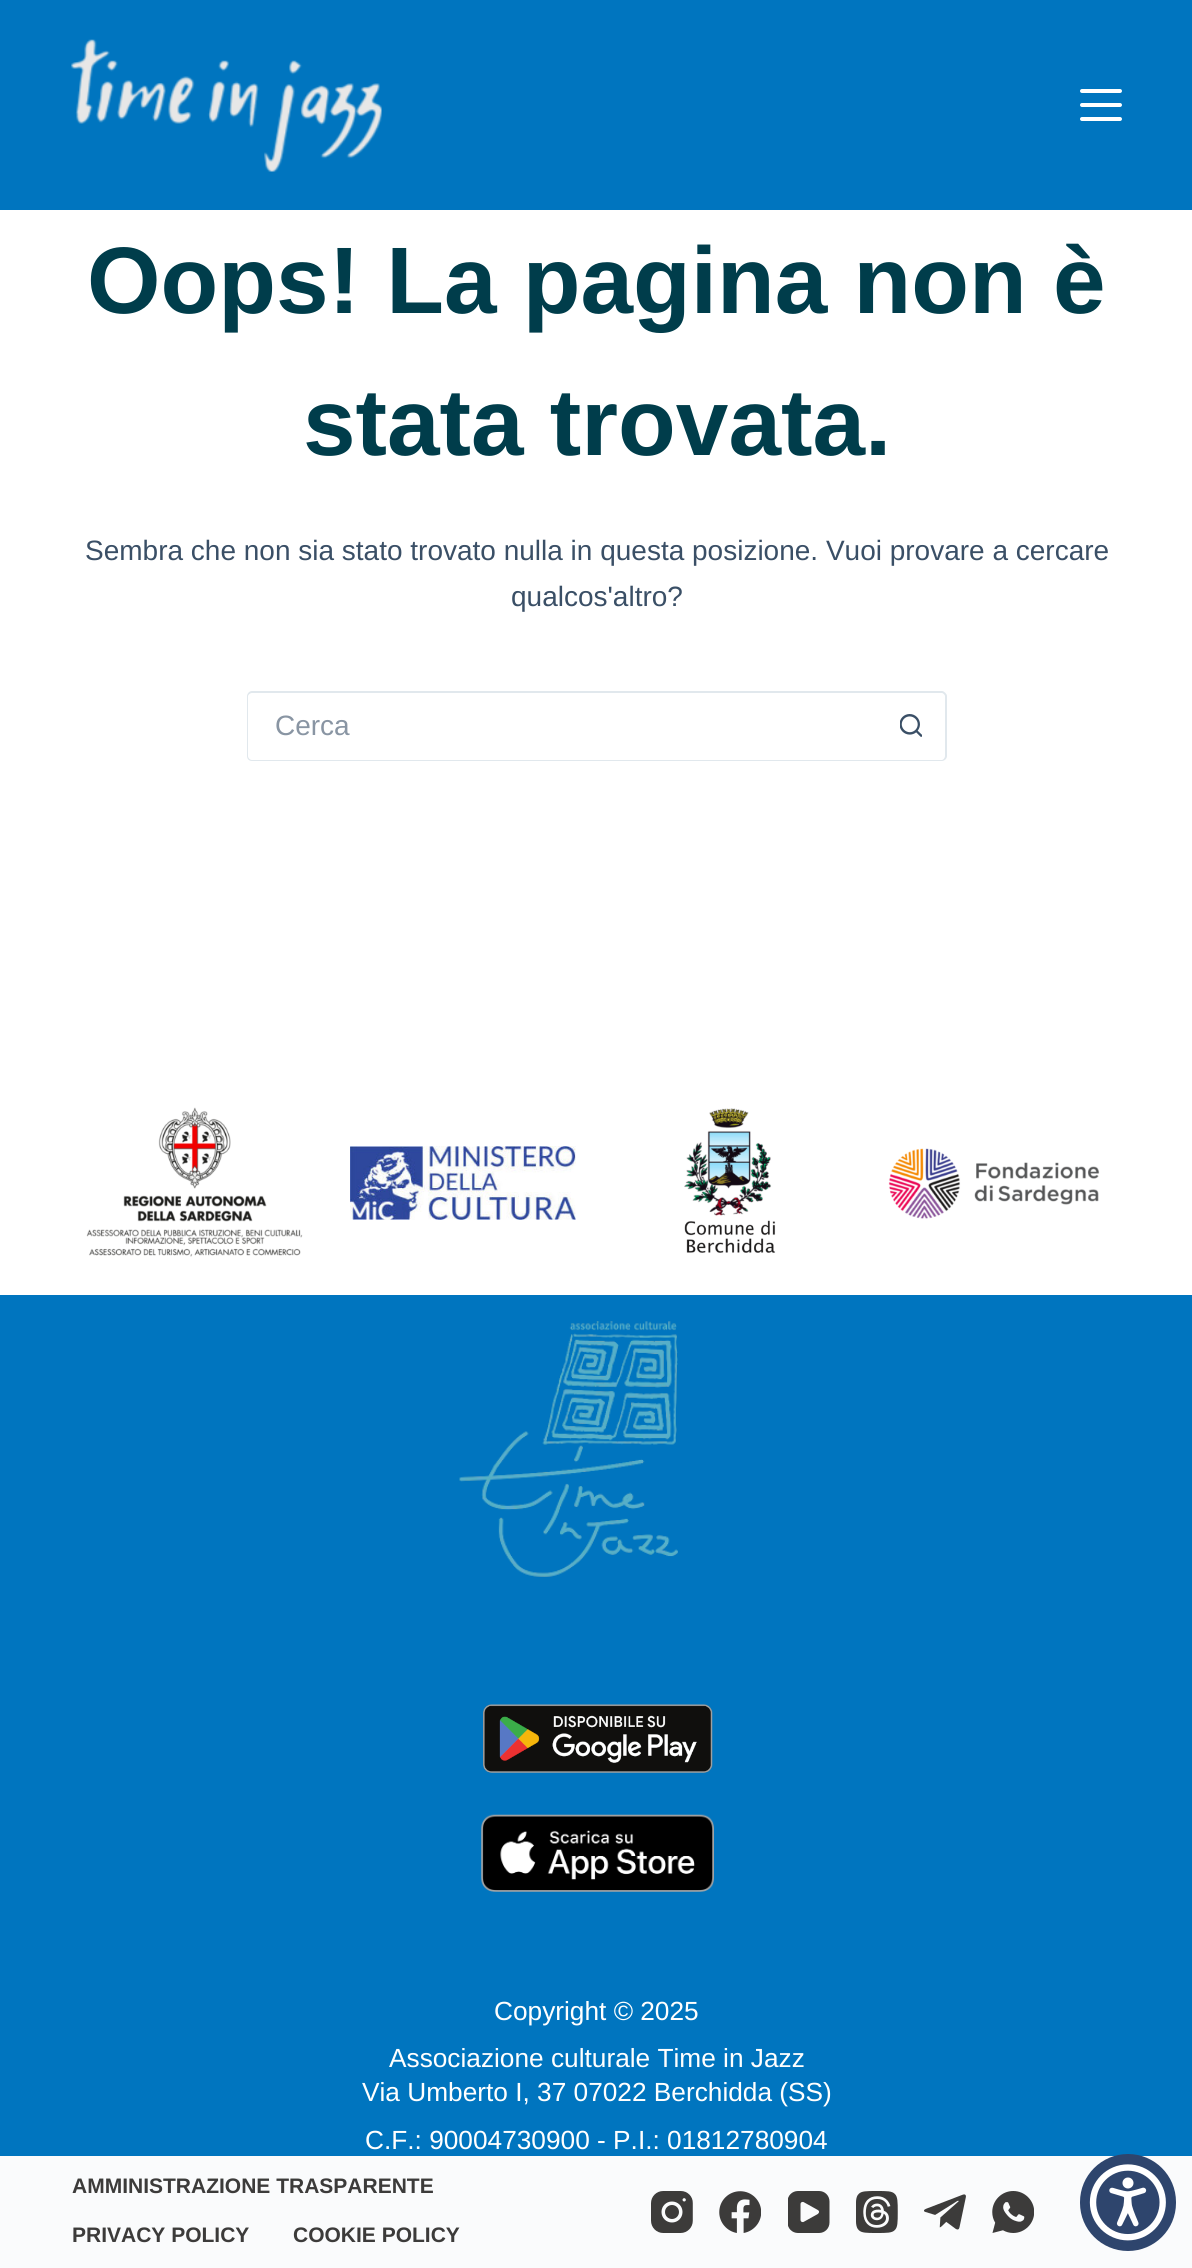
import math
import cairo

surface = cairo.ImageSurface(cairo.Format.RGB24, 1192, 2268)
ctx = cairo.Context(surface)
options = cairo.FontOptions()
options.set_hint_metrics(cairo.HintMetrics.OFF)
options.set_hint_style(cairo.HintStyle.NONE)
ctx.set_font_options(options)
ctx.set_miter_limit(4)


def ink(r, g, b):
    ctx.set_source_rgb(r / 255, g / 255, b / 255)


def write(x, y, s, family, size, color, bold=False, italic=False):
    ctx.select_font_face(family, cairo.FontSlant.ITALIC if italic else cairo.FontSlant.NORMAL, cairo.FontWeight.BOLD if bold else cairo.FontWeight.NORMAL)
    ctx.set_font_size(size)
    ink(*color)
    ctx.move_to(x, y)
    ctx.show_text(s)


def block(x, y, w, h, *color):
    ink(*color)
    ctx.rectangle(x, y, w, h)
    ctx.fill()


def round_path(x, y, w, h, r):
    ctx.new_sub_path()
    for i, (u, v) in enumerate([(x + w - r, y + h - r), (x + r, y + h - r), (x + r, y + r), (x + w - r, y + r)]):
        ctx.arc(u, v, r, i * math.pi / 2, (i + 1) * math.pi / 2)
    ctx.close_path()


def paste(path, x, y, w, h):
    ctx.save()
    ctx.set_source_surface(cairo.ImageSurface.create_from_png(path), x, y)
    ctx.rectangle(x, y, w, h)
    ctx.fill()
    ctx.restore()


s1 = dict(family="Liberation Sans", size=94.5, color=(0, 61, 75), bold=True)
s2 = dict(family="Liberation Sans", size=28, color=(58, 79, 102))
s3 = dict(family="Liberation Sans", size=28, color=(137, 149, 163))
s4 = dict(family="Liberation Sans", size=26.25, color=(255, 255, 255))
s5 = dict(family="Liberation Sans", size=21, color=(60, 59, 58), bold=True)

ink(255, 255, 255)
ctx.paint()
block(0, 0, 1192, 210, 0, 117, 191)
paste("pic1.png", 71, 39, 311, 133)
ink(255, 255, 255)
round_path(1080, 89, 42, 4, 2)
ctx.fill()
round_path(1080, 103, 42, 4, 2)
ctx.fill()
round_path(1080, 117, 42, 4, 2)
ctx.fill()
write(87, 313, "Oops! La pagina non è", **s1)
write(303, 455, "stata trovata.", **s1)
write(85, 560, "Sembra che non sia stato trovato nulla in questa posizione. Vuoi provare a cercare", **s2)
write(511, 606, "qualcos'altro?", **s2)
ink(225, 232, 237)
ctx.set_fill_rule(cairo.FillRule.EVEN_ODD)
ctx.new_path()
ctx.move_to(252, 691)
ctx.line_to(877, 691)
ctx.line_to(877, 761)
ctx.line_to(252, 761)
ctx.curve_to(249, 761, 247, 759, 247, 756)
ctx.line_to(247, 696)
ctx.curve_to(247, 694, 249, 691, 252, 691)
ctx.close_path()
ctx.move_to(252, 693)
ctx.line_to(877, 693)
ctx.line_to(877, 760)
ctx.line_to(252, 760)
ctx.curve_to(250, 760, 248, 758, 248, 756)
ctx.line_to(248, 696)
ctx.curve_to(248, 695, 250, 693, 252, 693)
ctx.close_path()
ctx.fill()
write(275, 735, "Cerca", **s3)
ink(225, 232, 237)
ctx.new_path()
ctx.move_to(877, 691)
ctx.line_to(942, 691)
ctx.curve_to(944, 691, 947, 694, 947, 696)
ctx.line_to(947, 756)
ctx.curve_to(947, 759, 944, 761, 942, 761)
ctx.line_to(877, 761)
ctx.close_path()
ctx.move_to(877, 693)
ctx.line_to(942, 693)
ctx.curve_to(943, 693, 945, 695, 945, 696)
ctx.line_to(945, 756)
ctx.curve_to(945, 758, 943, 760, 942, 760)
ctx.line_to(877, 760)
ctx.close_path()
ctx.fill()
paste("pic2.png", 900, 714, 22, 23)
paste("pic3.png", 86, 1107, 217, 150)
paste("pic4.png", 350, 1146, 226, 74)
paste("pic5.png", 684, 1108, 92, 145)
paste("pic6.png", 888, 1148, 212, 71)
block(0, 1295, 1192, 861, 0, 117, 191)
paste("pic7.png", 459, 1321, 219, 256)
paste("pic8.png", 483, 1704, 230, 69)
paste("pic9.png", 481, 1814, 233, 78)
write(494, 2020, "Copyright © 2025", **s4)
write(389, 2067, "Associazione culturale Time in Jazz", **s4)
write(362, 2101, "Via Umberto I, 37 07022 Berchidda (SS)", **s4)
write(365, 2149, "C.F.: 90004730900 - P.I.: 01812780904", **s4)
block(0, 2156, 1192, 112, 250, 251, 252)
write(72, 2193, "AMMINISTRAZIONE TRASPARENTE", **s5)
write(72, 2242, "PRIVACY POLICY", **s5)
write(293, 2242, "COOKIE POLICY", **s5)
paste("pic10.png", 651, 2191, 42, 42)
paste("pic11.png", 719, 2191, 42, 42)
paste("pic12.png", 788, 2191, 42, 42)
paste("pic13.png", 856, 2191, 42, 42)
paste("pic14.png", 924, 2194, 42, 36)
paste("pic15.png", 992, 2191, 42, 42)
ink(46, 69, 109)
round_path(1080, 2154, 96, 97, 48)
ctx.fill()
paste("pic16.png", 1089, 2164, 77, 77)
surface.write_to_png("screenshot.png")
